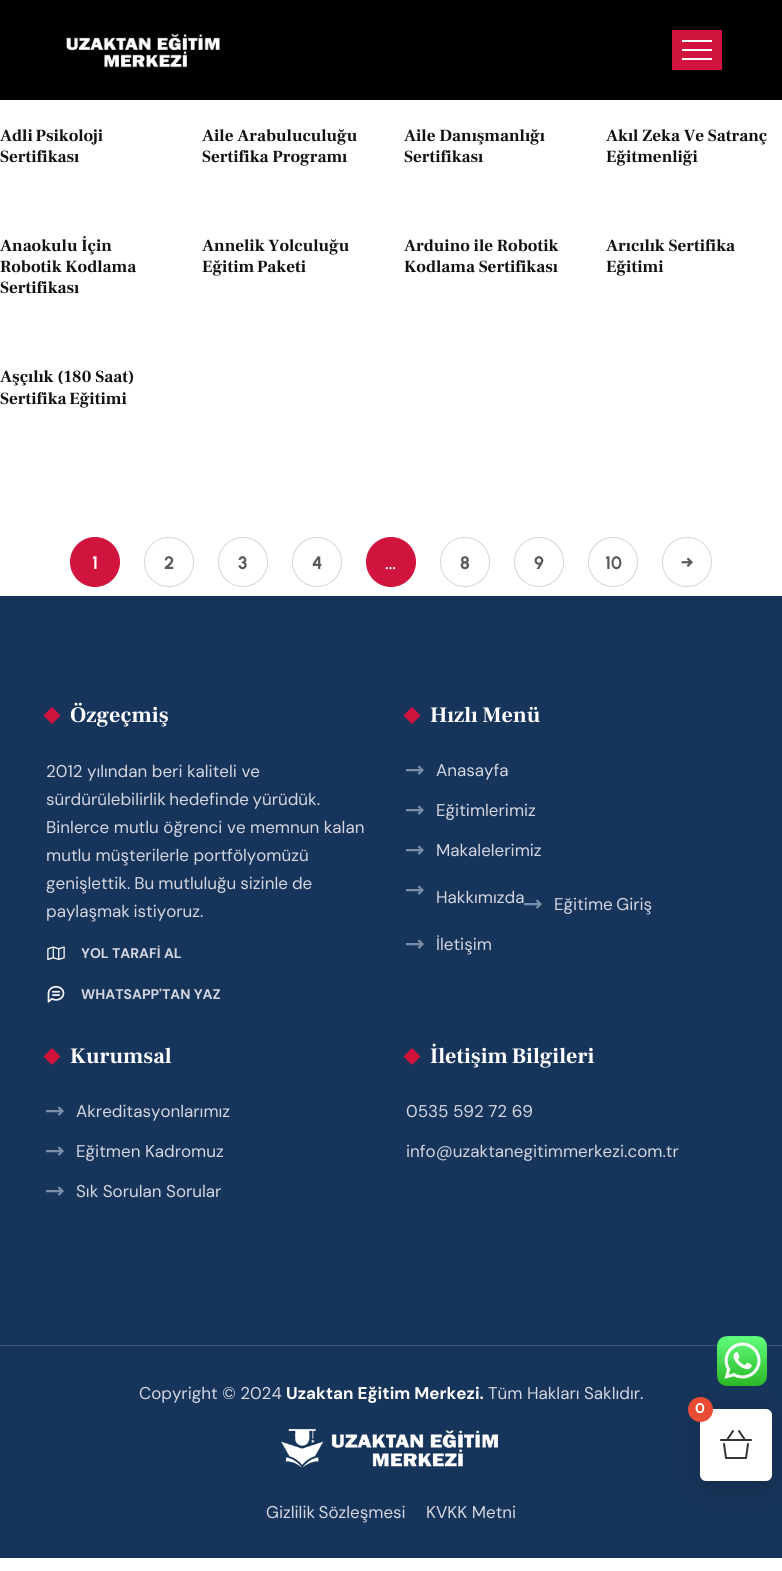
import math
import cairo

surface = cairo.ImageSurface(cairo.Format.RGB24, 782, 1571)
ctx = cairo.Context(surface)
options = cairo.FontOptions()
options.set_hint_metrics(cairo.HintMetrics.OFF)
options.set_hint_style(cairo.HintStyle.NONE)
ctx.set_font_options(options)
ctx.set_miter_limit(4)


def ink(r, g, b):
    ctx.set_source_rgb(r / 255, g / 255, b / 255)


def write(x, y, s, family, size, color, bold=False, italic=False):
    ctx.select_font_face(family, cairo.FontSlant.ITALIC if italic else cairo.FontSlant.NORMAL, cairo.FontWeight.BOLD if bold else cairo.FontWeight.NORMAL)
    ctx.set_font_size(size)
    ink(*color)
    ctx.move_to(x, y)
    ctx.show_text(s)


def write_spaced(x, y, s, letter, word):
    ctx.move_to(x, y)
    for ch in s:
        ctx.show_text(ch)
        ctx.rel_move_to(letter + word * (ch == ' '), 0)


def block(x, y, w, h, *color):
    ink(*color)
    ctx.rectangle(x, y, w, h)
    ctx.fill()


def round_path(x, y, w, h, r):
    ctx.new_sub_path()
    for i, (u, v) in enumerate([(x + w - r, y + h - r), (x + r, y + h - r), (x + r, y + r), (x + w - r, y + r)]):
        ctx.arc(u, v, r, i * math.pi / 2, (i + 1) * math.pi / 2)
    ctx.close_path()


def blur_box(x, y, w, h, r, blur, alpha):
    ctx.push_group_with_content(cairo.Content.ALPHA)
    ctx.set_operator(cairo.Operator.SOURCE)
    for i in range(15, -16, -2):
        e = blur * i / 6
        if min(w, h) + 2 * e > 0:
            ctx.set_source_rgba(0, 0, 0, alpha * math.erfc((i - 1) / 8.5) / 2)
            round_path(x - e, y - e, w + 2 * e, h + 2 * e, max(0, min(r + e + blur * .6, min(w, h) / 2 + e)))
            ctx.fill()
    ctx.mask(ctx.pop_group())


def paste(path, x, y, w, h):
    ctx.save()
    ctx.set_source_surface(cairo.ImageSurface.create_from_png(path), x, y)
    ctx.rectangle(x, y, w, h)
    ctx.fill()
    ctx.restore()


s1 = dict(family="Frank Ruhl Libre", size=17, color=(18, 18, 18), bold=True)
s2 = dict(family="Urbanist", size=18, color=(255, 255, 255), bold=True)
s3 = dict(family="Urbanist", size=18, color=(91, 88, 88), bold=True)
s4 = dict(family="Frank Ruhl Libre", size=22, color=(255, 255, 255), bold=True)
s5 = dict(family="DM Sans", size=17, color=(212, 214, 226))
s6 = dict(family="DM Sans", size=14, color=(212, 214, 226), bold=True)
s7 = dict(family="DM Sans", size=17, color=(255, 255, 255), bold=True)
s8 = dict(family="DM Sans", size=14, color=(255, 255, 255), bold=True)

ink(255, 255, 255)
ctx.paint()
block(0, 0, 782, 100, 0, 0, 0)
paste("pic1.png", 66, 33, 154, 35)
block(672, 30, 50, 40, 209, 20, 62)
block(682, 40, 30, 2, 255, 255, 255)
block(682, 49, 30, 2, 255, 255, 255)
block(682, 58, 30, 2, 255, 255, 255)
ctx.select_font_face("Frank Ruhl Libre", cairo.FontSlant.NORMAL, cairo.FontWeight.BOLD)
ctx.set_font_size(17)
ink(18, 18, 18)
write_spaced(0, 141, "Adli Psikoloji", 0, -1)
write(0, 162, "Sertifikası", **s1)
write(202, 141, "Aile Arabuluculuğu", **s1)
write(202, 162, "Sertifika Programı", **s1)
write(404, 141, "Aile Danışmanlığı", **s1)
write(404, 162, "Sertifikası", **s1)
write(606, 141, "Akıl Zeka Ve Satranç", **s1)
write(606, 162, "Eğitmenliği", **s1)
write(0, 251, "Anaokulu İçin", **s1)
write(0, 272, "Robotik Kodlama", **s1)
write(0, 293, "Sertifikası", **s1)
write(202, 251, "Annelik Yolculuğu", **s1)
write_spaced(202, 272, "Eğitim Paketi", 0, -1)
write(404, 251, "Arduino ile Robotik", **s1)
write(404, 272, "Kodlama Sertifikası", **s1)
write(606, 251, "Arıcılık Sertifika", **s1)
write(606, 272, "Eğitimi", **s1)
write(0, 382, "Aşçılık (180 Saat)", **s1)
write_spaced(0, 404, "Sertifika Eğitimi", 0, -1)
ink(209, 20, 62)
ctx.new_path()
ctx.arc(95, 562, 24.5, 0, 2 * math.pi)
ctx.fill_preserve()
ctx.set_line_width(1)
ctx.stroke()
write(92, 569, "1", **s2)
ctx.new_path()
ctx.arc(169, 562, 24.5, 0, 2 * math.pi)
ink(213, 213, 213)
ctx.stroke()
write(164, 569, "2", **s3)
ctx.new_path()
ctx.arc(243, 562, 24.5, 0, 2 * math.pi)
ink(213, 213, 213)
ctx.stroke()
write(238, 569, "3", **s3)
ctx.new_path()
ctx.arc(317, 562, 24.5, 0, 2 * math.pi)
ink(213, 213, 213)
ctx.stroke()
write(312, 569, "4", **s3)
ctx.new_path()
ctx.arc(465, 562, 24.5, 0, 2 * math.pi)
ink(213, 213, 213)
ctx.stroke()
write(460, 569, "8", **s3)
ctx.new_path()
ctx.arc(539, 562, 24.5, 0, 2 * math.pi)
ink(213, 213, 213)
ctx.stroke()
write(534, 569, "9", **s3)
ctx.new_path()
ctx.arc(613, 562, 24.5, 0, 2 * math.pi)
ink(213, 213, 213)
ctx.stroke()
write(605, 569, "10", **s3)
ctx.new_path()
ctx.arc(687, 562, 24.5, 0, 2 * math.pi)
ink(213, 213, 213)
ctx.stroke()
write(681, 569, "→", **s3)
ink(209, 20, 62)
ctx.new_path()
ctx.arc(391, 562, 24.5, 0, 2 * math.pi)
ctx.fill_preserve()
ctx.stroke()
write(385, 569, "…", **s2)
block(0, 596, 782, 962, 23, 52, 90)
ink(209, 20, 62)
ctx.new_path()
ctx.move_to(43.5, 715.5)
ctx.line_to(52, 707)
ctx.line_to(60.5, 715.5)
ctx.line_to(52, 724)
ctx.close_path()
ctx.fill()
write(70, 722, "Özgeçmiş", **s4)
write(46, 777, "2012 yılından beri kaliteli ve", **s5)
write_spaced(46, 805, "sürdürülebilirlik hedefinde yürüdük.", 0, -1)
write(46, 833, "Binlerce mutlu öğrenci ve memnun kalan", **s5)
write(46, 861, "mutlu müşterilerle portfölyomüzü", **s5)
write_spaced(46, 889, "genişlettik. Bu mutluluğu sizinle de", 0, -0.5)
write_spaced(46, 917, "paylaşmak istiyoruz.", 0, -1)
paste("pic2.png", 47, 946, 18, 15)
write(81, 958, "YOL TARAFİ AL", **s6)
paste("pic3.png", 47, 985, 18, 18)
write(81, 999, "WHATSAPP'TAN YAZ", **s6)
ink(209, 20, 62)
ctx.new_path()
ctx.move_to(403.5, 715.5)
ctx.line_to(412, 707)
ctx.line_to(420.5, 715.5)
ctx.line_to(412, 724)
ctx.close_path()
ctx.fill()
write(430, 722, "Hızlı Menü", **s4)
paste("pic4.png", 406, 765, 18, 10)
write(436, 776, "Anasayfa", **s5)
paste("pic4.png", 406, 805, 18, 10)
write(436, 816, "Eğitimlerimiz", **s5)
paste("pic4.png", 406, 845, 18, 10)
write(436, 856, "Makalelerimiz", **s5)
paste("pic4.png", 406, 885, 18, 10)
write(436, 903, "Hakkımızda", **s5)
paste("pic4.png", 524, 899, 18, 10)
write_spaced(554, 910, "Eğitime Giriş", 0, -1)
paste("pic4.png", 406, 939, 18, 10)
write(436, 950, "İletişim", **s5)
ink(209, 20, 62)
ctx.new_path()
ctx.move_to(43.5, 1056.5)
ctx.line_to(52, 1048)
ctx.line_to(60.5, 1056.5)
ctx.line_to(52, 1065)
ctx.close_path()
ctx.fill()
write(70, 1063, "Kurumsal", **s4)
paste("pic4.png", 46, 1106, 18, 10)
write(76, 1117, "Akreditasyonlarımız", **s5)
paste("pic4.png", 46, 1146, 18, 10)
write(76, 1157, "Eğitmen Kadromuz", **s5)
paste("pic4.png", 46, 1186, 18, 10)
write(76, 1197, "Sık Sorulan Sorular", **s5)
ink(209, 20, 62)
ctx.new_path()
ctx.move_to(403.5, 1056.5)
ctx.line_to(412, 1048)
ctx.line_to(420.5, 1056.5)
ctx.line_to(412, 1065)
ctx.close_path()
ctx.fill()
ctx.select_font_face("Frank Ruhl Libre", cairo.FontSlant.NORMAL, cairo.FontWeight.BOLD)
ctx.set_font_size(22)
ink(255, 255, 255)
write_spaced(430, 1063, "İletişim Bilgileri", 0, -1)
write(406, 1117, "0535 592 72 69", **s5)
write(406, 1157, "info@uzaktanegitimmerkezi.com.tr", **s5)
block(0, 1345, 782, 1, 58, 82, 115)
write(139, 1399, "Copyright © 2024", **s5)
write(286, 1399, "Uzaktan Eğitim Merkezi.", **s7)
write(488, 1399, "Tüm Hakları Saklıdır.", **s5)
paste("pic5.png", 281, 1429, 217, 38)
write_spaced(266, 1518, "Gizlilik Sözleşmesi", 0, -1)
write(426, 1518, "KVKK Metni", **s5)
ink(0, 0, 0)
blur_box(700, 1413, 72, 72, 6, 15, 0.17)
paste("pic6.png", 717, 1336, 50, 50)
ink(255, 255, 255)
round_path(700, 1409, 72, 72, 6)
ctx.fill()
ink(233, 75, 53)
ctx.arc(700.5, 1409.5, 12.5, 0, 2 * math.pi)
ctx.fill()
write(695, 1413, "0", **s8)
paste("pic7.png", 720, 1430, 32, 29)
surface.write_to_png("screenshot.png")
